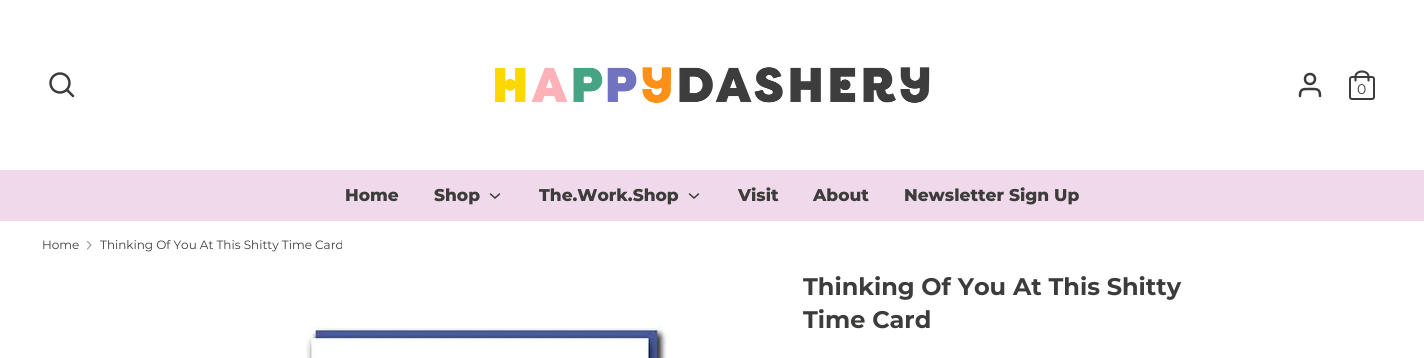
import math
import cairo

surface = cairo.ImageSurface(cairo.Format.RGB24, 1424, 358)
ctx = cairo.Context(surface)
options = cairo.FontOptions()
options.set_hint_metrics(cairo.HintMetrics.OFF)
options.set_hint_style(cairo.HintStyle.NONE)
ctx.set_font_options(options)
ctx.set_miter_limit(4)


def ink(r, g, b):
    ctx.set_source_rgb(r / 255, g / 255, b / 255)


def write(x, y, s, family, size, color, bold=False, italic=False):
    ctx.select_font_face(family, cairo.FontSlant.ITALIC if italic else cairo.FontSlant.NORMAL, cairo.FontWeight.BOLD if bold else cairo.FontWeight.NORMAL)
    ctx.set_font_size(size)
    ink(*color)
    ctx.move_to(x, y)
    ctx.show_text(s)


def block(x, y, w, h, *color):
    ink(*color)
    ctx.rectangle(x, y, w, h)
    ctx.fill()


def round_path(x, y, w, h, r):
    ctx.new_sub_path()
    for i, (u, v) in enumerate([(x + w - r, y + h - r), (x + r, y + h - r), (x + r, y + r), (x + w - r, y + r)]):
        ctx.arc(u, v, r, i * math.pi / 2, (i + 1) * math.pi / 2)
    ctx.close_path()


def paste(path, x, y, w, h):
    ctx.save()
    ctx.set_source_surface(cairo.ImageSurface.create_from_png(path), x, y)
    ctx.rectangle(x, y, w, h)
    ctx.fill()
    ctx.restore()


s1 = dict(family="Montserrat", size=14, color=(60, 60, 59))
s2 = dict(family="Montserrat ExtraBold", size=17, color=(60, 60, 59))
s3 = dict(family="Montserrat", size=12, color=(60, 60, 59))
s4 = dict(family="Montserrat", size=24, color=(60, 60, 59), bold=True)

ink(255, 255, 255)
ctx.paint()
ctx.arc(60, 83, 9.5, 0, 2 * math.pi)
ink(60, 60, 59)
ctx.set_line_width(2.5)
ctx.stroke()
ctx.new_path()
ctx.move_to(73, 96)
ctx.line_to(67, 90)
ctx.set_line_cap(cairo.LineCap.ROUND)
ctx.stroke()
paste("pic1.png", 494, 67, 436, 36)
ctx.new_path()
ctx.move_to(1320, 96)
ctx.curve_to(1320, 88.5, 1317, 89, 1310, 89)
ctx.curve_to(1303, 89, 1300, 88.5, 1300, 96)
ctx.stroke()
ctx.arc(1310, 79, 5, 0, 2 * math.pi)
ctx.set_line_cap(cairo.LineCap.BUTT)
ctx.stroke()
round_path(1350, 77, 24, 22, 2)
ctx.set_line_width(2)
ctx.stroke()
ctx.new_path()
ctx.move_to(1355.5, 80.5)
ctx.line_to(1355.5, 76.5)
ctx.curve_to(1355.5, 73.5, 1358.5, 71.5, 1362, 71.5)
ctx.curve_to(1365.5, 71.5, 1368.5, 73.5, 1368.5, 76.5)
ctx.line_to(1368.5, 80.5)
ctx.set_line_width(2.1)
ctx.set_line_cap(cairo.LineCap.ROUND)
ctx.stroke()
write(1357, 94, "0", **s1)
block(0, 170, 1424, 51, 240, 217, 234)
write(345, 201, "Home", **s2)
write(434, 201, "Shop", **s2)
ctx.new_path()
ctx.move_to(490.5, 194)
ctx.line_to(495, 198)
ctx.line_to(499.5, 194)
ctx.set_line_width(1.5)
ctx.stroke()
write(539, 201, "The.Work.Shop", **s2)
ctx.new_path()
ctx.move_to(689.5, 194)
ctx.line_to(694, 198)
ctx.line_to(698.5, 194)
ctx.stroke()
write(738, 201, "Visit", **s2)
write(813, 201, "About", **s2)
write(904, 201, "Newsletter Sign Up", **s2)
write(42, 249, "Home", **s3)
ctx.new_path()
ctx.move_to(87.5, 249)
ctx.line_to(91, 245)
ctx.line_to(87.5, 241.5)
ink(158, 158, 157)
ctx.set_line_width(1.2)
ctx.stroke()
write(100, 249, "Thinking Of You At This Shitty Time Card", **s3)
write(803, 295, "Thinking Of You At This Shitty", **s4)
write(803, 328, "Time Card", **s4)
paste("pic2.png", 306, 318, 361, 40)
surface.write_to_png("screenshot.png")
